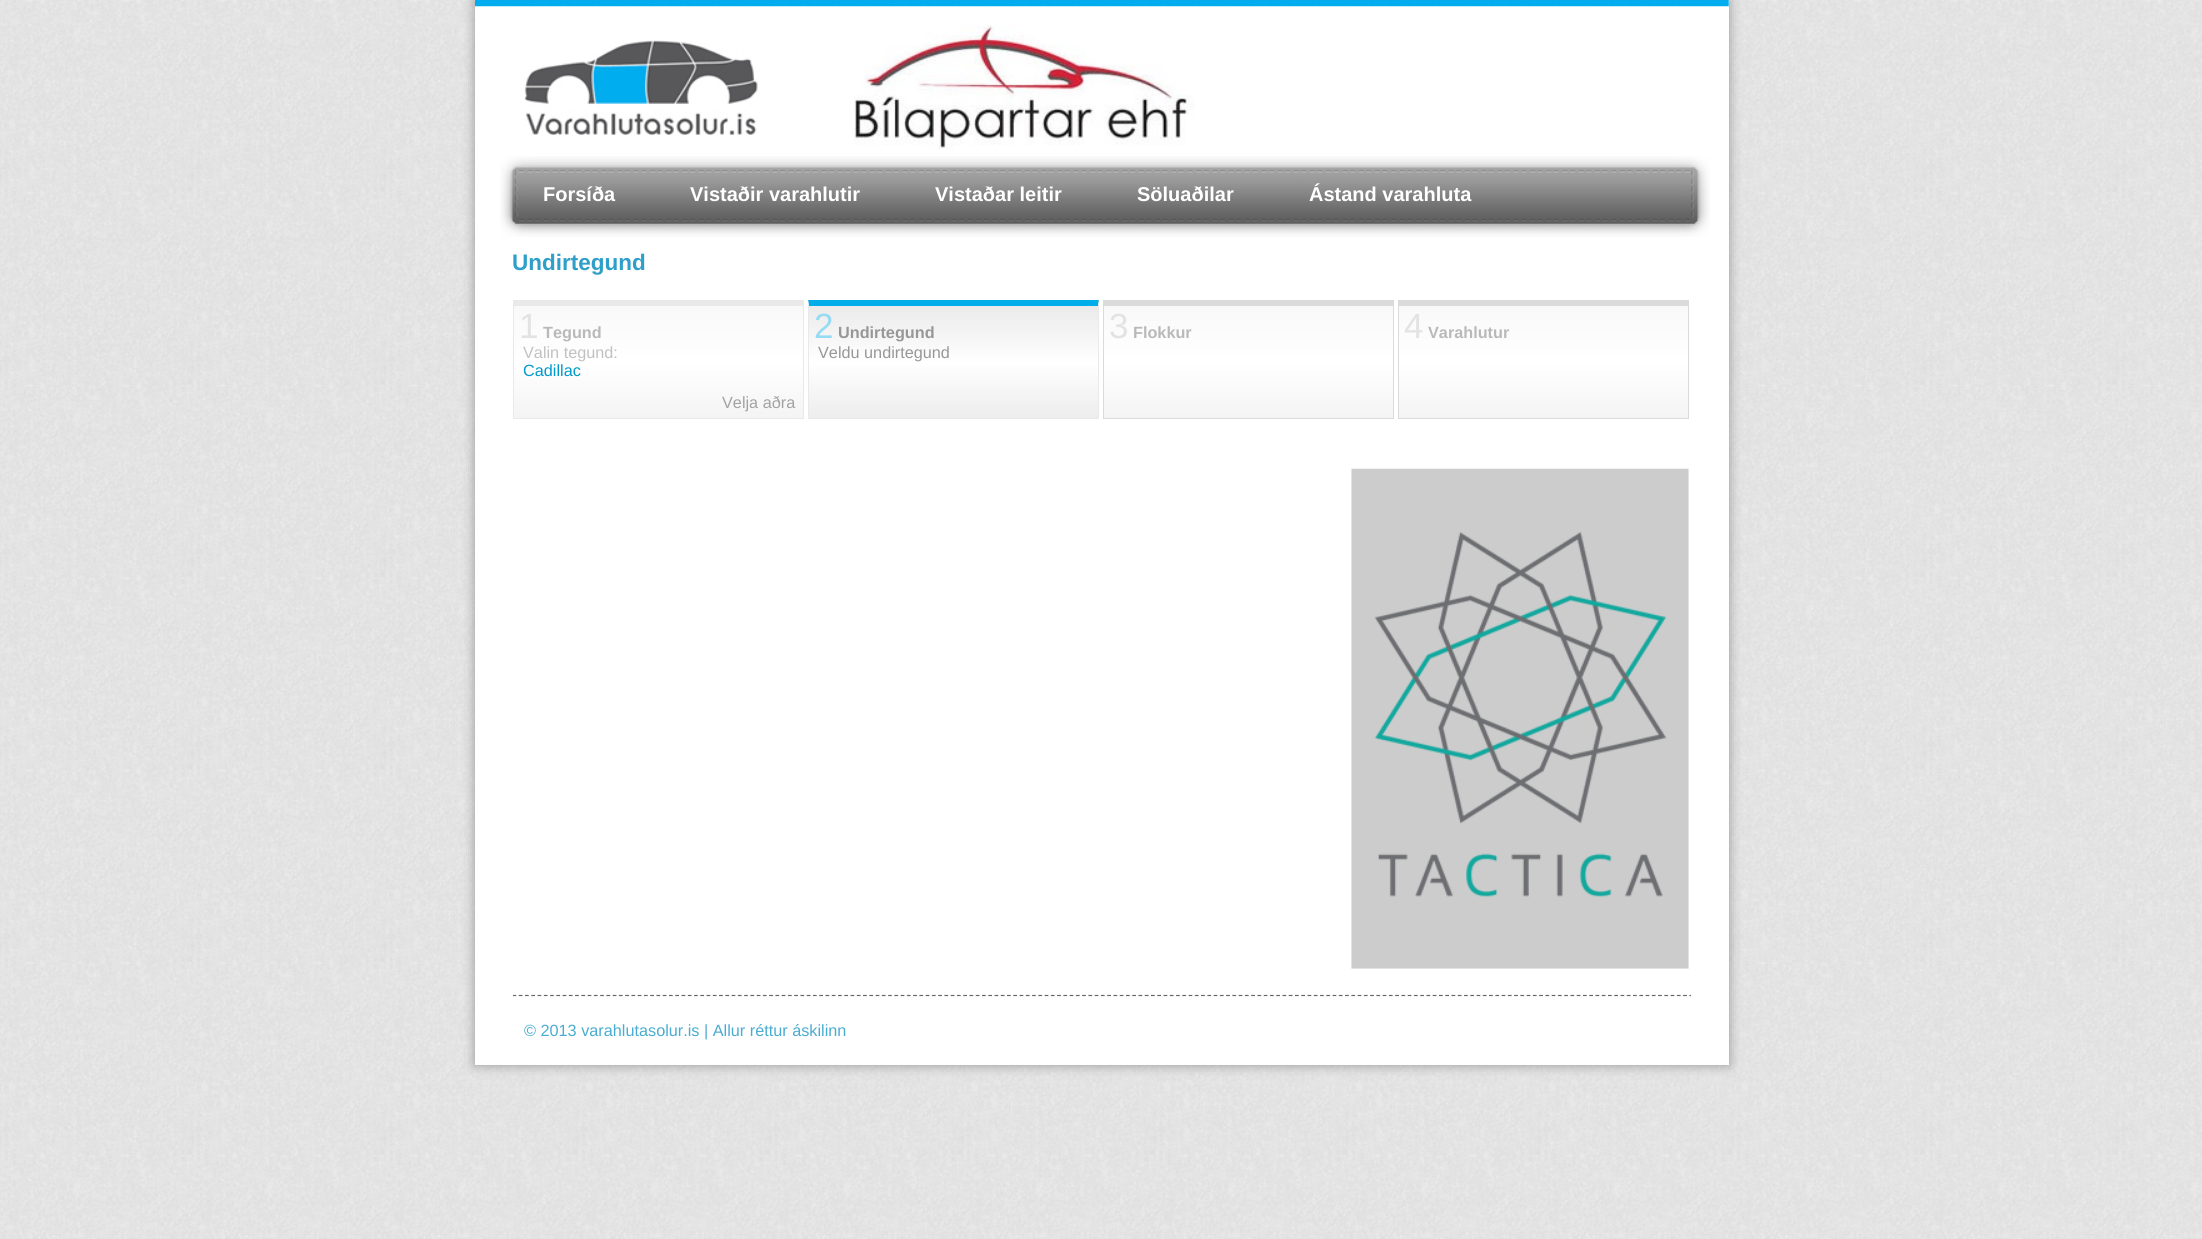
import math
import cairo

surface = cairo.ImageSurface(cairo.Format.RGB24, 2202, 1239)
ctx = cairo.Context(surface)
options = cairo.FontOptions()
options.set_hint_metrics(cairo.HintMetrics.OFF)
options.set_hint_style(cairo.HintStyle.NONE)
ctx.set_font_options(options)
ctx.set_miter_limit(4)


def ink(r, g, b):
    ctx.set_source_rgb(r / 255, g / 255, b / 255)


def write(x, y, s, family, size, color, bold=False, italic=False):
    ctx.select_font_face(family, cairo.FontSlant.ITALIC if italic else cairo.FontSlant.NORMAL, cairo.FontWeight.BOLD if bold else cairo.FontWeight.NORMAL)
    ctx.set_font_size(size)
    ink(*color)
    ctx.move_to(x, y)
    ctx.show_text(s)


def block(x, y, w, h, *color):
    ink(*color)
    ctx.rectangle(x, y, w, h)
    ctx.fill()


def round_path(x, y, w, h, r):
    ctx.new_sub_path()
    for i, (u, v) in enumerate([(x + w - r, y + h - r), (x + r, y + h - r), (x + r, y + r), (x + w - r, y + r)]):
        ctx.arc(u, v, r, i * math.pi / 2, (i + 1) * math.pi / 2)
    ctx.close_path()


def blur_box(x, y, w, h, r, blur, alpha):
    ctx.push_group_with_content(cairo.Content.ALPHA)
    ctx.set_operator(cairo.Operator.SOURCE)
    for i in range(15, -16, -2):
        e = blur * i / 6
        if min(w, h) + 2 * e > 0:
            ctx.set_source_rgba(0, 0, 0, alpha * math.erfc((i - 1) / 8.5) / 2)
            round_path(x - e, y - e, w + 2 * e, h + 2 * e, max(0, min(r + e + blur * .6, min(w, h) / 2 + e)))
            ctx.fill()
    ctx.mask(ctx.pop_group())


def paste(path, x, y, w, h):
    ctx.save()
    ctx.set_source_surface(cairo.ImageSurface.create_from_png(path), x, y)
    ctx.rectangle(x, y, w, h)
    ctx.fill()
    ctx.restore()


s1 = dict(family="Liberation Sans", size=20, color=(255, 255, 255), bold=True)
s2 = dict(family="Liberation Sans", size=22.5, color=(46, 159, 201), bold=True)
s3 = dict(family="Liberation Sans", size=35, color=(227, 227, 227))
s4 = dict(family="Liberation Sans", size=16.25, color=(185, 185, 185), bold=True)
s5 = dict(family="Liberation Sans", size=16.25, color=(193, 193, 193))
s6 = dict(family="Liberation Sans", size=16.25, color=(0, 153, 204))
s7 = dict(family="Liberation Sans", size=16.25, color=(162, 162, 162))
s8 = dict(family="Liberation Sans", size=35, color=(150, 219, 244))
s9 = dict(family="Liberation Sans", size=16.25, color=(151, 151, 151), bold=True)
s10 = dict(family="Liberation Sans", size=16.25, color=(151, 151, 151))
s11 = dict(family="Liberation Sans", size=16.25, color=(74, 172, 208))

ink(255, 255, 255)
ctx.paint()
paste("pic1.png", 0, 0, 2202, 1239)
ink(148, 148, 148)
blur_box(475, 0, 1254, 1065, 0, 6, 1)
block(475, 0, 1254, 1065, 255, 255, 255)
paste("pic2.png", 475, 0, 1254, 7)
paste("pic3.png", 524, 40, 234, 95)
paste("pic4.png", 854, 25, 340, 125)
paste("pic5.png", 500, 156, 1210, 81)
write(543, 201, "Forsíða", **s1)
write(690, 201, "Vistaðir varahlutir", **s1)
write(935, 201, "Vistaðar leitir", **s1)
write(1137, 201, "Söluaðilar", **s1)
write(1309, 201, "Ástand varahluta", **s1)
write(512, 270, "Undirtegund", **s2)
gradient = cairo.LinearGradient(658, 306, 658, 418)
gradient.add_color_stop_rgba(0, 0.976, 0.976, 0.976, 1)
gradient.add_color_stop_rgba(0.5, 1, 1, 1, 1)
gradient.add_color_stop_rgba(1, 0.957, 0.957, 0.957, 1)
ctx.set_source(gradient)
ctx.rectangle(514, 306, 289, 112)
ctx.fill()
block(513, 300, 291, 6, 233, 233, 233)
block(803, 300, 1, 119, 233, 233, 233)
block(513, 418, 291, 1, 233, 233, 233)
block(513, 300, 1, 119, 233, 233, 233)
write(519, 338, "1", **s3)
write(543, 338, "Tegund", **s4)
write(523, 358, "Valin tegund:", **s5)
write(523, 376, "Cadillac", **s6)
write(722, 408, "Velja aðra", **s7)
gradient = cairo.LinearGradient(953, 306, 953, 418)
gradient.add_color_stop_rgba(0, 0.918, 0.918, 0.918, 1)
gradient.add_color_stop_rgba(0.5, 1, 1, 1, 1)
gradient.add_color_stop_rgba(1, 0.929, 0.929, 0.929, 1)
ctx.set_source(gradient)
ctx.rectangle(809, 306, 289, 112)
ctx.fill()
ink(0, 172, 234)
ctx.new_path()
ctx.move_to(808, 300)
ctx.line_to(1099, 300)
ctx.line_to(1098, 306)
ctx.line_to(809, 306)
ctx.close_path()
ctx.fill()
ink(233, 233, 233)
ctx.new_path()
ctx.move_to(1099, 300)
ctx.line_to(1099, 419)
ctx.line_to(1098, 418)
ctx.line_to(1098, 306)
ctx.close_path()
ctx.fill()
block(808, 418, 291, 1, 233, 233, 233)
ctx.new_path()
ctx.move_to(808, 419)
ctx.line_to(808, 300)
ctx.line_to(809, 306)
ctx.line_to(809, 418)
ctx.close_path()
ctx.fill()
write(814, 338, "2", **s8)
write(838, 338, "Undirtegund", **s9)
write(818, 358, "Veldu undirtegund", **s10)
gradient = cairo.LinearGradient(1248, 306, 1248, 418)
gradient.add_color_stop_rgba(0, 0.976, 0.976, 0.976, 1)
gradient.add_color_stop_rgba(0.5, 1, 1, 1, 1)
gradient.add_color_stop_rgba(1, 0.957, 0.957, 0.957, 1)
ctx.set_source(gradient)
ctx.rectangle(1104, 306, 289, 112)
ctx.fill()
block(1103, 300, 291, 6, 219, 219, 219)
block(1393, 300, 1, 119, 219, 219, 219)
block(1103, 418, 291, 1, 219, 219, 219)
block(1103, 300, 1, 119, 219, 219, 219)
write(1109, 338, "3", **s3)
write(1133, 338, "Flokkur", **s4)
gradient = cairo.LinearGradient(1543, 306, 1543, 418)
gradient.add_color_stop_rgba(0, 0.976, 0.976, 0.976, 1)
gradient.add_color_stop_rgba(0.5, 1, 1, 1, 1)
gradient.add_color_stop_rgba(1, 0.957, 0.957, 0.957, 1)
ctx.set_source(gradient)
ctx.rectangle(1399, 306, 289, 112)
ctx.fill()
block(1398, 300, 291, 6, 219, 219, 219)
block(1688, 300, 1, 119, 219, 219, 219)
block(1398, 418, 291, 1, 219, 219, 219)
block(1398, 300, 1, 119, 219, 219, 219)
write(1404, 338, "4", **s3)
write(1428, 338, "Varahlutur", **s4)
paste("pic6.png", 1351, 468, 338, 501)
ctx.save()
ctx.rectangle(513, 250, 1178, 815)
ctx.clip()
ctx.new_path()
ctx.move_to(512.5, 995.5)
ctx.line_to(1700, 995.5)
ink(104, 104, 104)
ctx.set_line_width(1.2)
ctx.set_dash([3.75, 2.51])
ctx.stroke()
ctx.restore()
write(524, 1036, "© 2013 varahlutasolur.is | Allur réttur áskilinn", **s11)
surface.write_to_png("screenshot.png")
